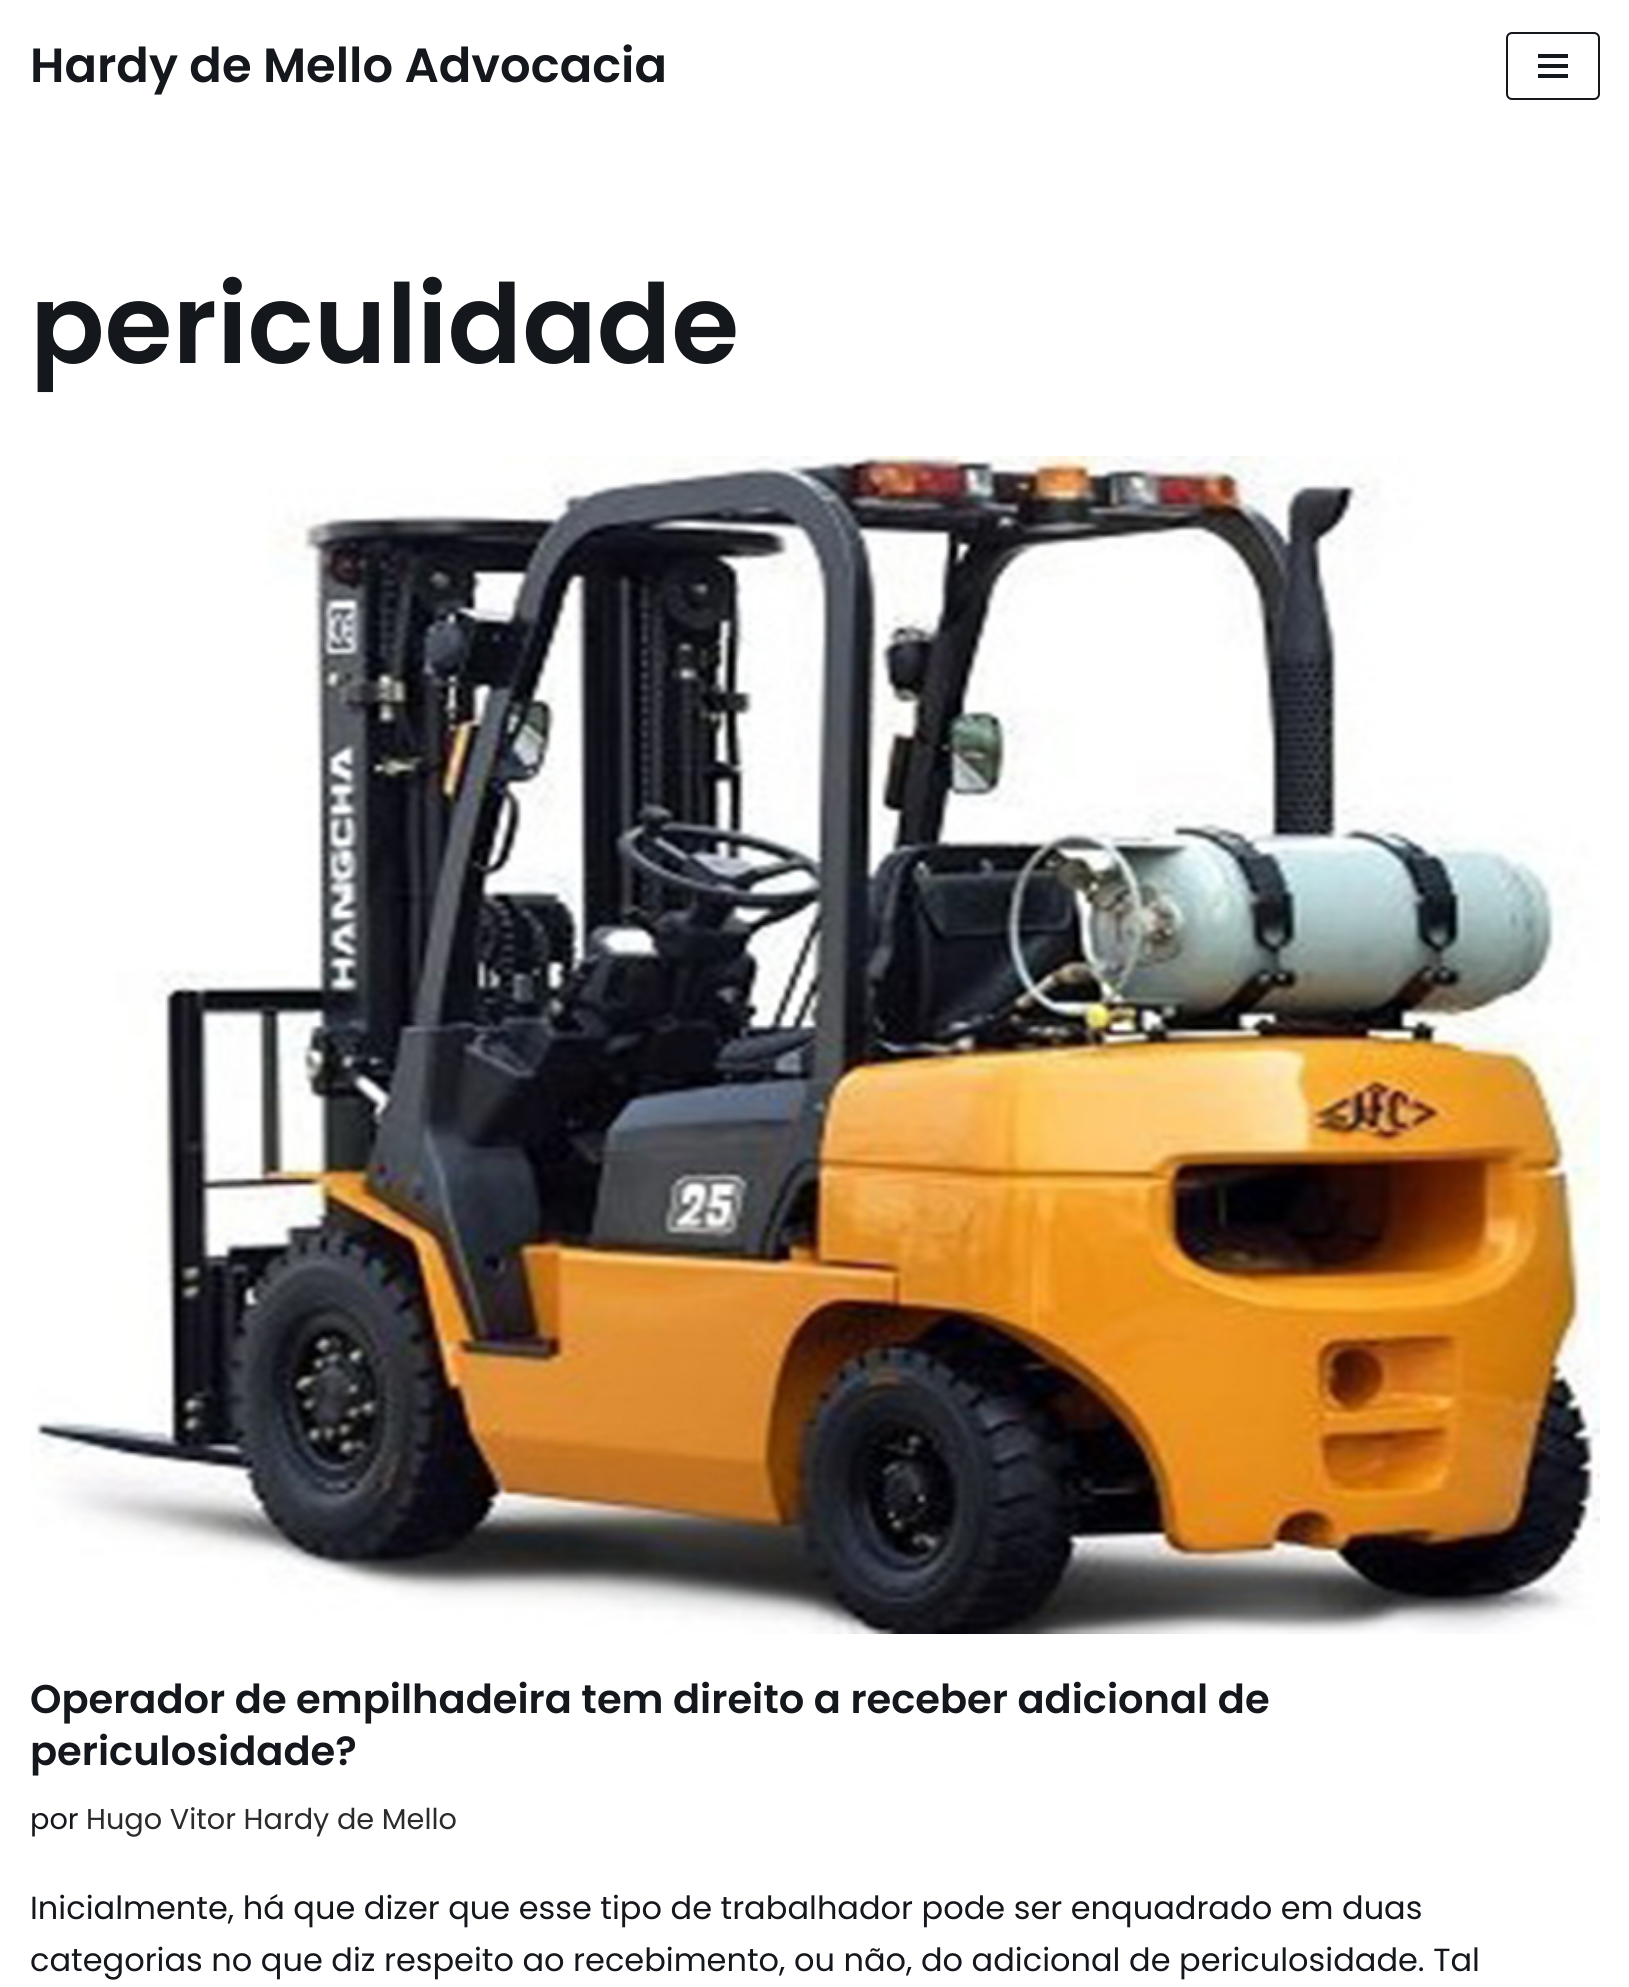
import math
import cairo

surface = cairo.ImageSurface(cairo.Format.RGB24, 1629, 1987)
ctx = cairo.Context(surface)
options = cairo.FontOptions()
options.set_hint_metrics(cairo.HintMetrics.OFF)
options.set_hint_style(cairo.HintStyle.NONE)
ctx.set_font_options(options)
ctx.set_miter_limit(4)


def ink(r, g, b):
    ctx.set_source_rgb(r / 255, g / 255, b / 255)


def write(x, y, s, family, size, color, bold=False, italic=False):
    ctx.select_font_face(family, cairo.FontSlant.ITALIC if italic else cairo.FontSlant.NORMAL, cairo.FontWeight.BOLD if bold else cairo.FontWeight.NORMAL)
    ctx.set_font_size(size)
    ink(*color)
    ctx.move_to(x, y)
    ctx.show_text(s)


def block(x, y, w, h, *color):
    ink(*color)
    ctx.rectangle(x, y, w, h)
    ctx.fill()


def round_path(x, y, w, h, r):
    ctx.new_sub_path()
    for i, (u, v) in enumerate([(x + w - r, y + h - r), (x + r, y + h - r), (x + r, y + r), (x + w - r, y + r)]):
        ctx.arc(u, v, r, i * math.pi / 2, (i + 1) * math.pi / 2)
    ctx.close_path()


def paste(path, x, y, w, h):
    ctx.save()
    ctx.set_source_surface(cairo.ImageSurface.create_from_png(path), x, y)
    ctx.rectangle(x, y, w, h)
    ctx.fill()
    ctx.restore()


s1 = dict(family="Poppins SemiBold", size=48, color=(20, 23, 28))
s2 = dict(family="Poppins SemiBold", size=110, color=(20, 23, 28))
s3 = dict(family="Poppins SemiBold", size=40, color=(20, 23, 28))
s4 = dict(family="Poppins", size=28.75, color=(20, 23, 28))
s5 = dict(family="Poppins", size=28.75, color=(43, 43, 43))
s6 = dict(family="Poppins", size=32, color=(20, 23, 28))

ink(255, 255, 255)
ctx.paint()
write(30, 82, "Hardy de Mello Advocacia", **s1)
round_path(1507, 33, 92, 66, 5)
ctx.stroke()
block(1538, 54, 30, 4, 20, 23, 28)
block(1538, 64, 30, 4, 20, 23, 28)
block(1538, 74, 30, 4, 20, 23, 28)
write(30, 363, "periculidade", **s2)
paste("pic1.png", 30, 456, 1570, 1178)
write(30, 1713, "Operador de empilhadeira tem direito a receber adicional de", **s3)
write(30, 1765, "periculosidade?", **s3)
write(30, 1829, "por", **s4)
write(86, 1829, "Hugo Vitor Hardy de Mello", **s5)
write(30, 1919, "Inicialmente, há que dizer que esse tipo de trabalhador pode ser enquadrado em duas", **s6)
write(30, 1971, "categorias no que diz respeito ao recebimento, ou não, do adicional de periculosidade. Tal", **s6)
surface.write_to_png("screenshot.png")
